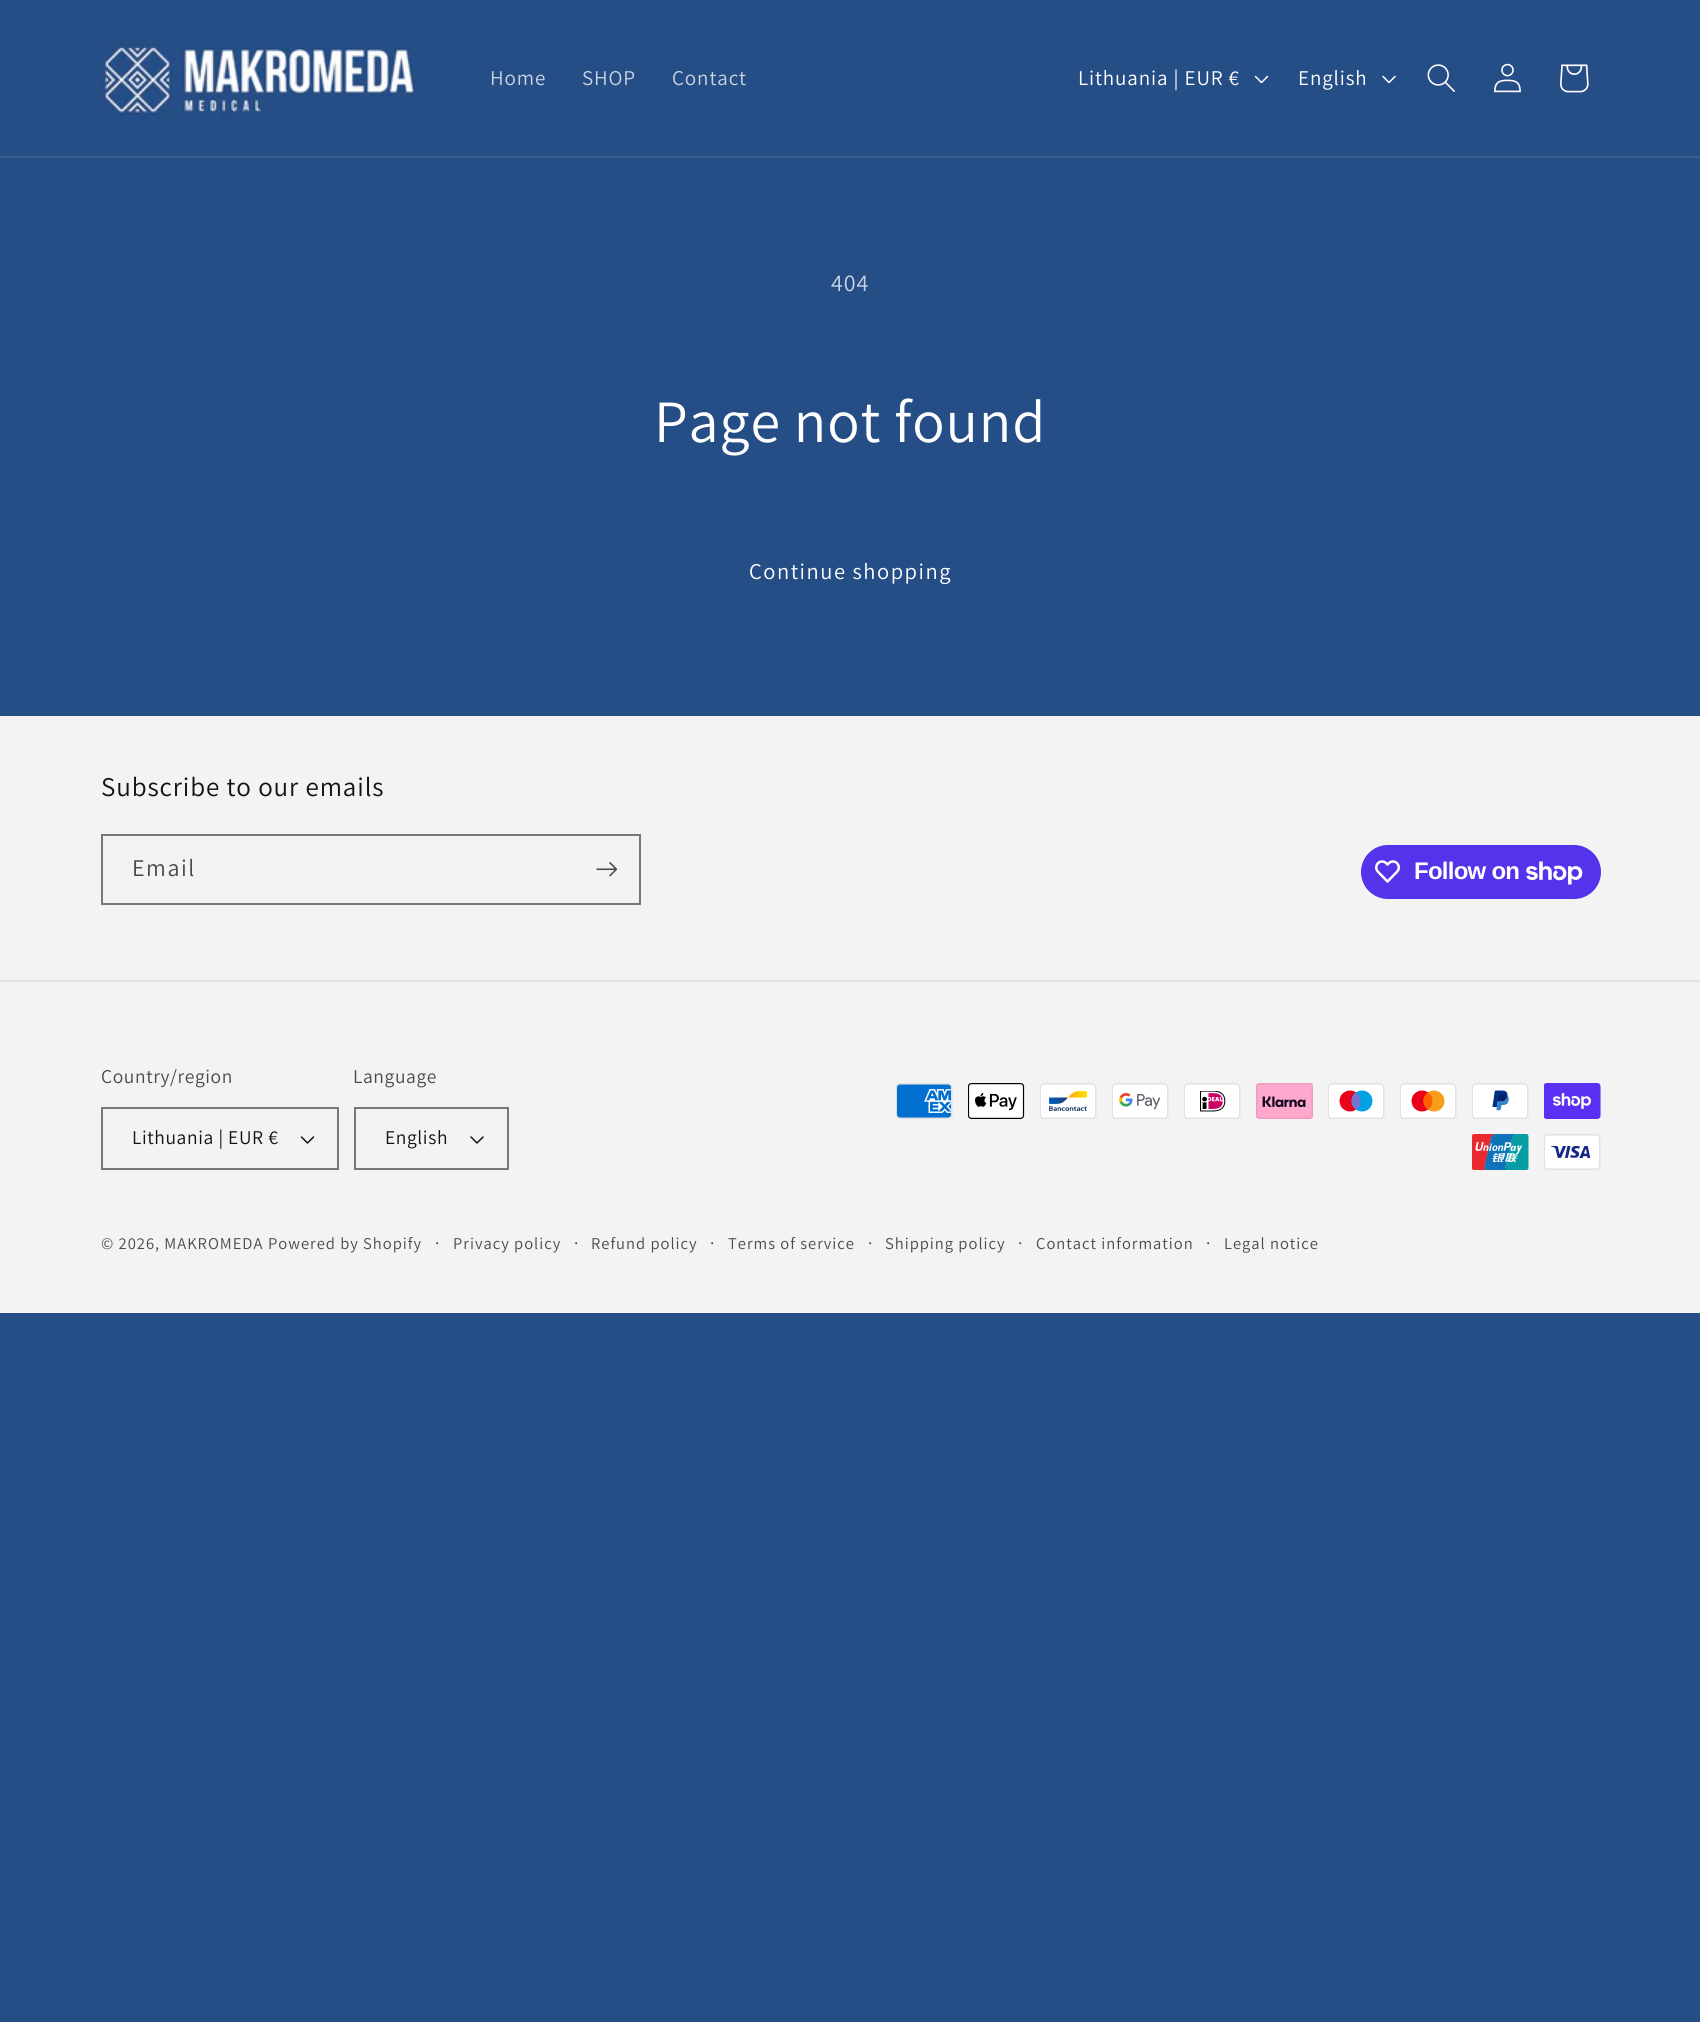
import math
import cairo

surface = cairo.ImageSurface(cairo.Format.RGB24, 1700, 2022)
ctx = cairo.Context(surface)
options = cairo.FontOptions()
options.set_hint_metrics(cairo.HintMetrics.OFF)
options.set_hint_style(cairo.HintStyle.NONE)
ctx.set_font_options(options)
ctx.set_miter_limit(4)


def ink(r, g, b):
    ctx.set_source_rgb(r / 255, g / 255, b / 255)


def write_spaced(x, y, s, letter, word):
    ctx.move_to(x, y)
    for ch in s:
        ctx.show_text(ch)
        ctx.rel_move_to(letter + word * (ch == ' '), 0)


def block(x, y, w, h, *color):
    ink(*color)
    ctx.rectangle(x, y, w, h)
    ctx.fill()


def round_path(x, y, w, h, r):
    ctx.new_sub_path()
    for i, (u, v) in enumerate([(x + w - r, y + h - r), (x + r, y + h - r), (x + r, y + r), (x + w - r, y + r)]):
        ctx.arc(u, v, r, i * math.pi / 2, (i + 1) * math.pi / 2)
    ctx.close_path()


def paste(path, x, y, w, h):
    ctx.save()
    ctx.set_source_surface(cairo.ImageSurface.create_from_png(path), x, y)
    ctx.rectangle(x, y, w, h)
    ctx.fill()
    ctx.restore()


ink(38, 78, 134)
ctx.paint()
block(0, 156, 1700, 2, 55, 92, 144)
paste("pic1.png", 100, 46, 316, 74)
ctx.select_font_face("Assistant")
ctx.set_font_size(21)
ink(201, 211, 225)
write_spaced(490, 85, "Home", 0.9, 0)
write_spaced(582, 85, "SHOP", 0.9, 0)
write_spaced(672, 85, "Contact", 0.9, 0)
ink(255, 255, 255)
write_spaced(1078, 85, "Lithuania | EUR €", 0.9, 0)
paste("pic2.png", 1254, 75, 15, 9)
write_spaced(1298, 85, "English", 0.9, 0)
paste("pic3.png", 1382, 75, 14, 9)
paste("pic4.png", 1427, 64, 28, 28)
paste("pic5.png", 1494, 63, 27, 30)
paste("pic6.png", 1560, 64, 29, 29)
ctx.set_font_size(24)
ink(201, 211, 225)
write_spaced(831, 291, "404", 0.9, 0)
ctx.set_font_size(60)
ink(255, 255, 255)
write_spaced(654, 442, "Page not found", 0.9, 0)
ctx.set_font_size(22.5)
write_spaced(749, 579, "Continue shopping", 1.5, 0)
block(0, 716, 1700, 597, 243, 243, 243)
ctx.set_font_size(27)
ink(18, 18, 18)
write_spaced(101, 796, "Subscribe to our emails", 0.9, 0)
ctx.rectangle(102, 835, 538, 69)
ink(119, 119, 119)
ctx.stroke()
ctx.set_font_size(24)
ink(74, 74, 74)
write_spaced(132, 876, "Email", 1.5, 0)
paste("pic7.png", 596, 862, 22, 15)
ink(84, 51, 235)
round_path(1361, 845, 240, 54, 27)
ctx.fill()
paste("pic8.png", 1375, 860, 25, 23)
ctx.select_font_face("Liberation Sans", cairo.FontSlant.NORMAL, cairo.FontWeight.BOLD)
ink(255, 255, 255)
write_spaced(1414, 879, "Follow on", -0.75, 0)
paste("pic9.png", 1526, 861, 57, 24)
block(0, 980, 1700, 2, 225, 225, 225)
ctx.select_font_face("Assistant")
ctx.set_font_size(19.5)
ink(74, 74, 74)
write_spaced(101, 1083, "Country/region", 0.6, 0)
paste("pic10.png", 300, 1136, 15, 8)
ctx.rectangle(102, 1108, 236, 61)
ink(119, 119, 119)
ctx.stroke()
ink(18, 18, 18)
write_spaced(132, 1144, "Lithuania | EUR €", 0.6, 0)
ink(74, 74, 74)
write_spaced(353, 1083, "Language", 0.6, 0)
paste("pic11.png", 470, 1136, 14, 8)
ctx.rectangle(355, 1108, 153, 61)
ink(119, 119, 119)
ctx.stroke()
ink(18, 18, 18)
write_spaced(385, 1144, "English", 0.6, 0)
paste("pic12.png", 896, 1083, 57, 36)
paste("pic13.png", 968, 1083, 57, 36)
paste("pic14.png", 1040, 1083, 57, 36)
paste("pic15.png", 1112, 1083, 57, 36)
paste("pic16.png", 1184, 1083, 57, 36)
paste("pic17.png", 1256, 1083, 57, 36)
paste("pic18.png", 1328, 1083, 57, 36)
paste("pic19.png", 1400, 1083, 57, 36)
paste("pic20.png", 1472, 1083, 57, 36)
paste("pic21.png", 1544, 1083, 57, 36)
paste("pic22.png", 1472, 1134, 57, 36)
paste("pic23.png", 1544, 1134, 57, 36)
ctx.set_font_size(16.5)
ink(74, 74, 74)
write_spaced(101, 1249, "© 2026, MAKROMEDA", 1, 0)
write_spaced(268, 1249, "Powered by Shopify", 1, 0)
ctx.set_font_size(18)
write_spaced(435, 1249, "·", 1, 0)
ctx.set_font_size(16.5)
write_spaced(453, 1249, "Privacy policy", 1, 0)
ctx.set_font_size(18)
write_spaced(574, 1249, "·", 1, 0)
ctx.set_font_size(16.5)
write_spaced(591, 1249, "Refund policy", 1, 0)
ctx.set_font_size(18)
write_spaced(710, 1249, "·", 1, 0)
ctx.set_font_size(16.5)
write_spaced(728, 1249, "Terms of service", 1, 0)
ctx.set_font_size(18)
write_spaced(868, 1249, "·", 1, 0)
ctx.set_font_size(16.5)
write_spaced(885, 1249, "Shipping policy", 1, 0)
ctx.set_font_size(18)
write_spaced(1018, 1249, "·", 1, 0)
ctx.set_font_size(16.5)
write_spaced(1036, 1249, "Contact information", 1, 0)
ctx.set_font_size(18)
write_spaced(1206, 1249, "·", 1, 0)
ctx.set_font_size(16.5)
write_spaced(1224, 1249, "Legal notice", 1, 0)
surface.write_to_png("screenshot.png")
